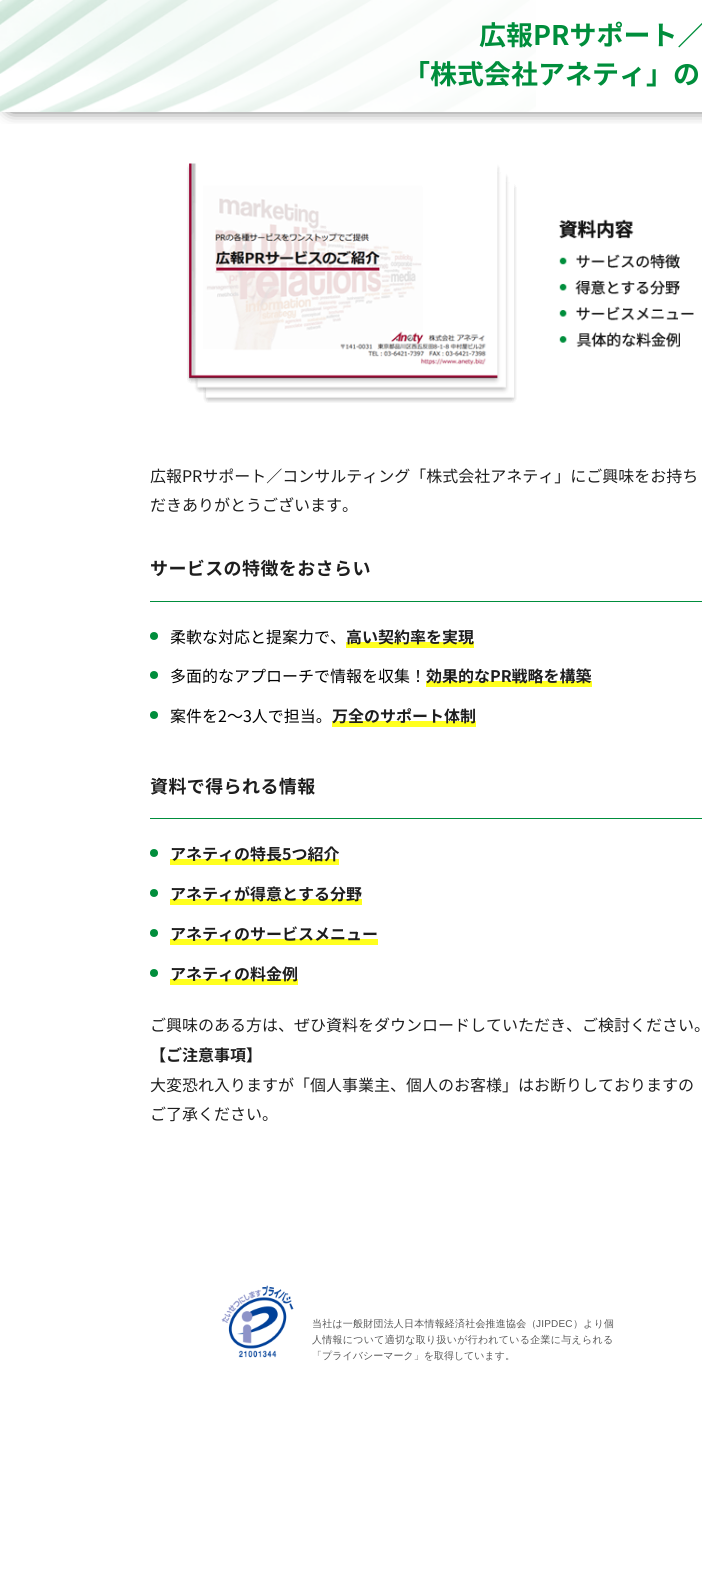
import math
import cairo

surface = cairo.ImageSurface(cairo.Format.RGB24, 702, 1590)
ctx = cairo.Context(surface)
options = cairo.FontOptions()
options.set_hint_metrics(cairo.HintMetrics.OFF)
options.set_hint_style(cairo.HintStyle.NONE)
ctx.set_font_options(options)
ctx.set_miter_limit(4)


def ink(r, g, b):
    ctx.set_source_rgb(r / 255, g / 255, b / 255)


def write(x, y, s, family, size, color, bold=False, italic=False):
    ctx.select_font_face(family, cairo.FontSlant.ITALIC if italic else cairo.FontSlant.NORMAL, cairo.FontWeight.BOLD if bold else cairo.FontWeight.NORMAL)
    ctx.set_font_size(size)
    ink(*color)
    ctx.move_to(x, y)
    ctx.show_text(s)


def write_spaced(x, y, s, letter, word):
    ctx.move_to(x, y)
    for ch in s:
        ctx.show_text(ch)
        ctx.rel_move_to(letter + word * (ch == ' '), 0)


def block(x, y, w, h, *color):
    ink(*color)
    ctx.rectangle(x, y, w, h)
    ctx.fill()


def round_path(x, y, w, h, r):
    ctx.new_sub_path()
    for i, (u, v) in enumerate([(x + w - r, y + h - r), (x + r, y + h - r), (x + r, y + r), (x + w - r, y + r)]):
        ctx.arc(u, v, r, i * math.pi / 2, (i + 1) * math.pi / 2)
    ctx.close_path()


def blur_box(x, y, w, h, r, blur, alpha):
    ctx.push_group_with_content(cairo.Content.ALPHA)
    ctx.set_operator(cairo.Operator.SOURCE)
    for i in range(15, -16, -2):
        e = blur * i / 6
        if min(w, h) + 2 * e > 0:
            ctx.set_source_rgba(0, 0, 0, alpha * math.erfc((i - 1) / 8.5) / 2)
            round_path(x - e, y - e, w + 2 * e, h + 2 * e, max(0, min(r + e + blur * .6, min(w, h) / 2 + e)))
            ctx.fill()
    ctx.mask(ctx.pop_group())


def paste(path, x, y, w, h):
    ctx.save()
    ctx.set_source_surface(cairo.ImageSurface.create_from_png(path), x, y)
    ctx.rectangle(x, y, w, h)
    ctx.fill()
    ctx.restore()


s1 = dict(family="Noto Sans JP", size=27, color=(0, 142, 60), bold=True)
s2 = dict(family="Noto Sans JP", size=16, color=(30, 30, 30))
s3 = dict(family="Noto Sans JP", size=16, color=(0, 0, 0))
s4 = dict(family="Noto Sans JP", size=16, color=(30, 30, 30), bold=True)
s5 = dict(family="WenQuanYi Zen Hei Medium", size=10, color=(86, 86, 86))

ink(255, 255, 255)
ctx.paint()
ctx.save()
ctx.rectangle(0, 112, 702, 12)
ctx.clip()
ink(0, 0, 1)
blur_box(11, 17, 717, 90, 0, 8.5, 1)
ctx.restore()
paste("pic1.png", 0, 0, 536, 112)
write(479, 45, "広報PRサポート／", **s1)
write(403, 84, "「株式会社アネティ」の", **s1)
paste("pic2.png", 187, 163, 507, 240)
write(150, 482, "広報PRサポート／コンサルティング「株式会社アネティ」にご興味をお持ち", **s2)
write(150, 511, "だきありがとうございます。", **s2)
block(150, 601, 552, 1, 0, 142, 60)
ctx.select_font_face("Noto Sans JP", cairo.FontSlant.NORMAL, cairo.FontWeight.BOLD)
ctx.set_font_size(18)
ink(30, 30, 30)
write_spaced(150, 575, "サービスの特徴をおさらい", 0.4, 0)
ink(0, 142, 60)
ctx.new_path()
ctx.arc(154, 636, 4, 0, 2 * math.pi)
ctx.fill()
write(170, 643, "柔軟な対応と提案力で、", **s3)
block(346, 642, 128, 6, 255, 255, 31)
write(346, 643, "高い契約率を実現", **s4)
ink(0, 142, 60)
ctx.new_path()
ctx.arc(154, 675, 4, 0, 2 * math.pi)
ctx.fill()
write(170, 682, "多面的なアプローチで情報を収集！", **s3)
block(426, 681, 166, 6, 255, 255, 31)
write(426, 682, "効果的なPR戦略を構築", **s4)
ink(0, 142, 60)
ctx.new_path()
ctx.arc(154, 715, 4, 0, 2 * math.pi)
ctx.fill()
write(170, 722, "案件を2～3人で担当。", **s3)
block(332, 721, 144, 6, 255, 255, 31)
write(332, 722, "万全のサポート体制", **s4)
block(150, 818, 552, 1, 0, 142, 60)
ctx.set_font_size(18)
ink(30, 30, 30)
write_spaced(150, 793, "資料で得られる情報", 0.4, 0)
ink(0, 142, 60)
ctx.new_path()
ctx.arc(154, 853, 4, 0, 2 * math.pi)
ctx.fill()
block(170, 859, 169, 6, 255, 255, 31)
write(170, 860, "アネティの特長5つ紹介", **s4)
ink(0, 142, 60)
ctx.new_path()
ctx.arc(154, 893, 4, 0, 2 * math.pi)
ctx.fill()
block(170, 899, 192, 6, 255, 255, 31)
write(170, 900, "アネティが得意とする分野", **s4)
ink(0, 142, 60)
ctx.new_path()
ctx.arc(154, 933, 4, 0, 2 * math.pi)
ctx.fill()
block(170, 939, 208, 6, 255, 255, 31)
write(170, 940, "アネティのサービスメニュー", **s4)
ink(0, 142, 60)
ctx.new_path()
ctx.arc(154, 973, 4, 0, 2 * math.pi)
ctx.fill()
block(170, 979, 128, 6, 255, 255, 31)
write(170, 980, "アネティの料金例", **s4)
write(150, 1031, "ご興味のある方は、ぜひ資料をダウンロードしていただき、ご検討ください。", **s2)
write(150, 1061, "【ご注意事項】", **s4)
write(150, 1091, "大変恐れ入りますが「個人事業主、個人のお客様」はお断りしておりますの", **s2)
write(150, 1120, "ご了承ください。", **s2)
paste("pic3.png", 221, 1285, 73, 73)
ctx.select_font_face("WenQuanYi Zen Hei Medium")
ctx.set_font_size(10)
ink(86, 86, 86)
write_spaced(312, 1327, "当社は一般財団法人日本情報経済社会推進協会（", 0.2, 0)
ctx.select_font_face("Liberation Sans")
write_spaced(536, 1327, "JIPDEC", 0.2, 0)
ctx.select_font_face("WenQuanYi Zen Hei Medium")
write_spaced(573, 1327, "）より個", 0.2, 0)
write_spaced(312, 1343, "人情報について適切な取り扱いが行われている企業に与えられる", 0.25, 0)
write(312, 1359, "「プライバシーマーク」を取得しています。", **s5)
surface.write_to_png("screenshot.png")
